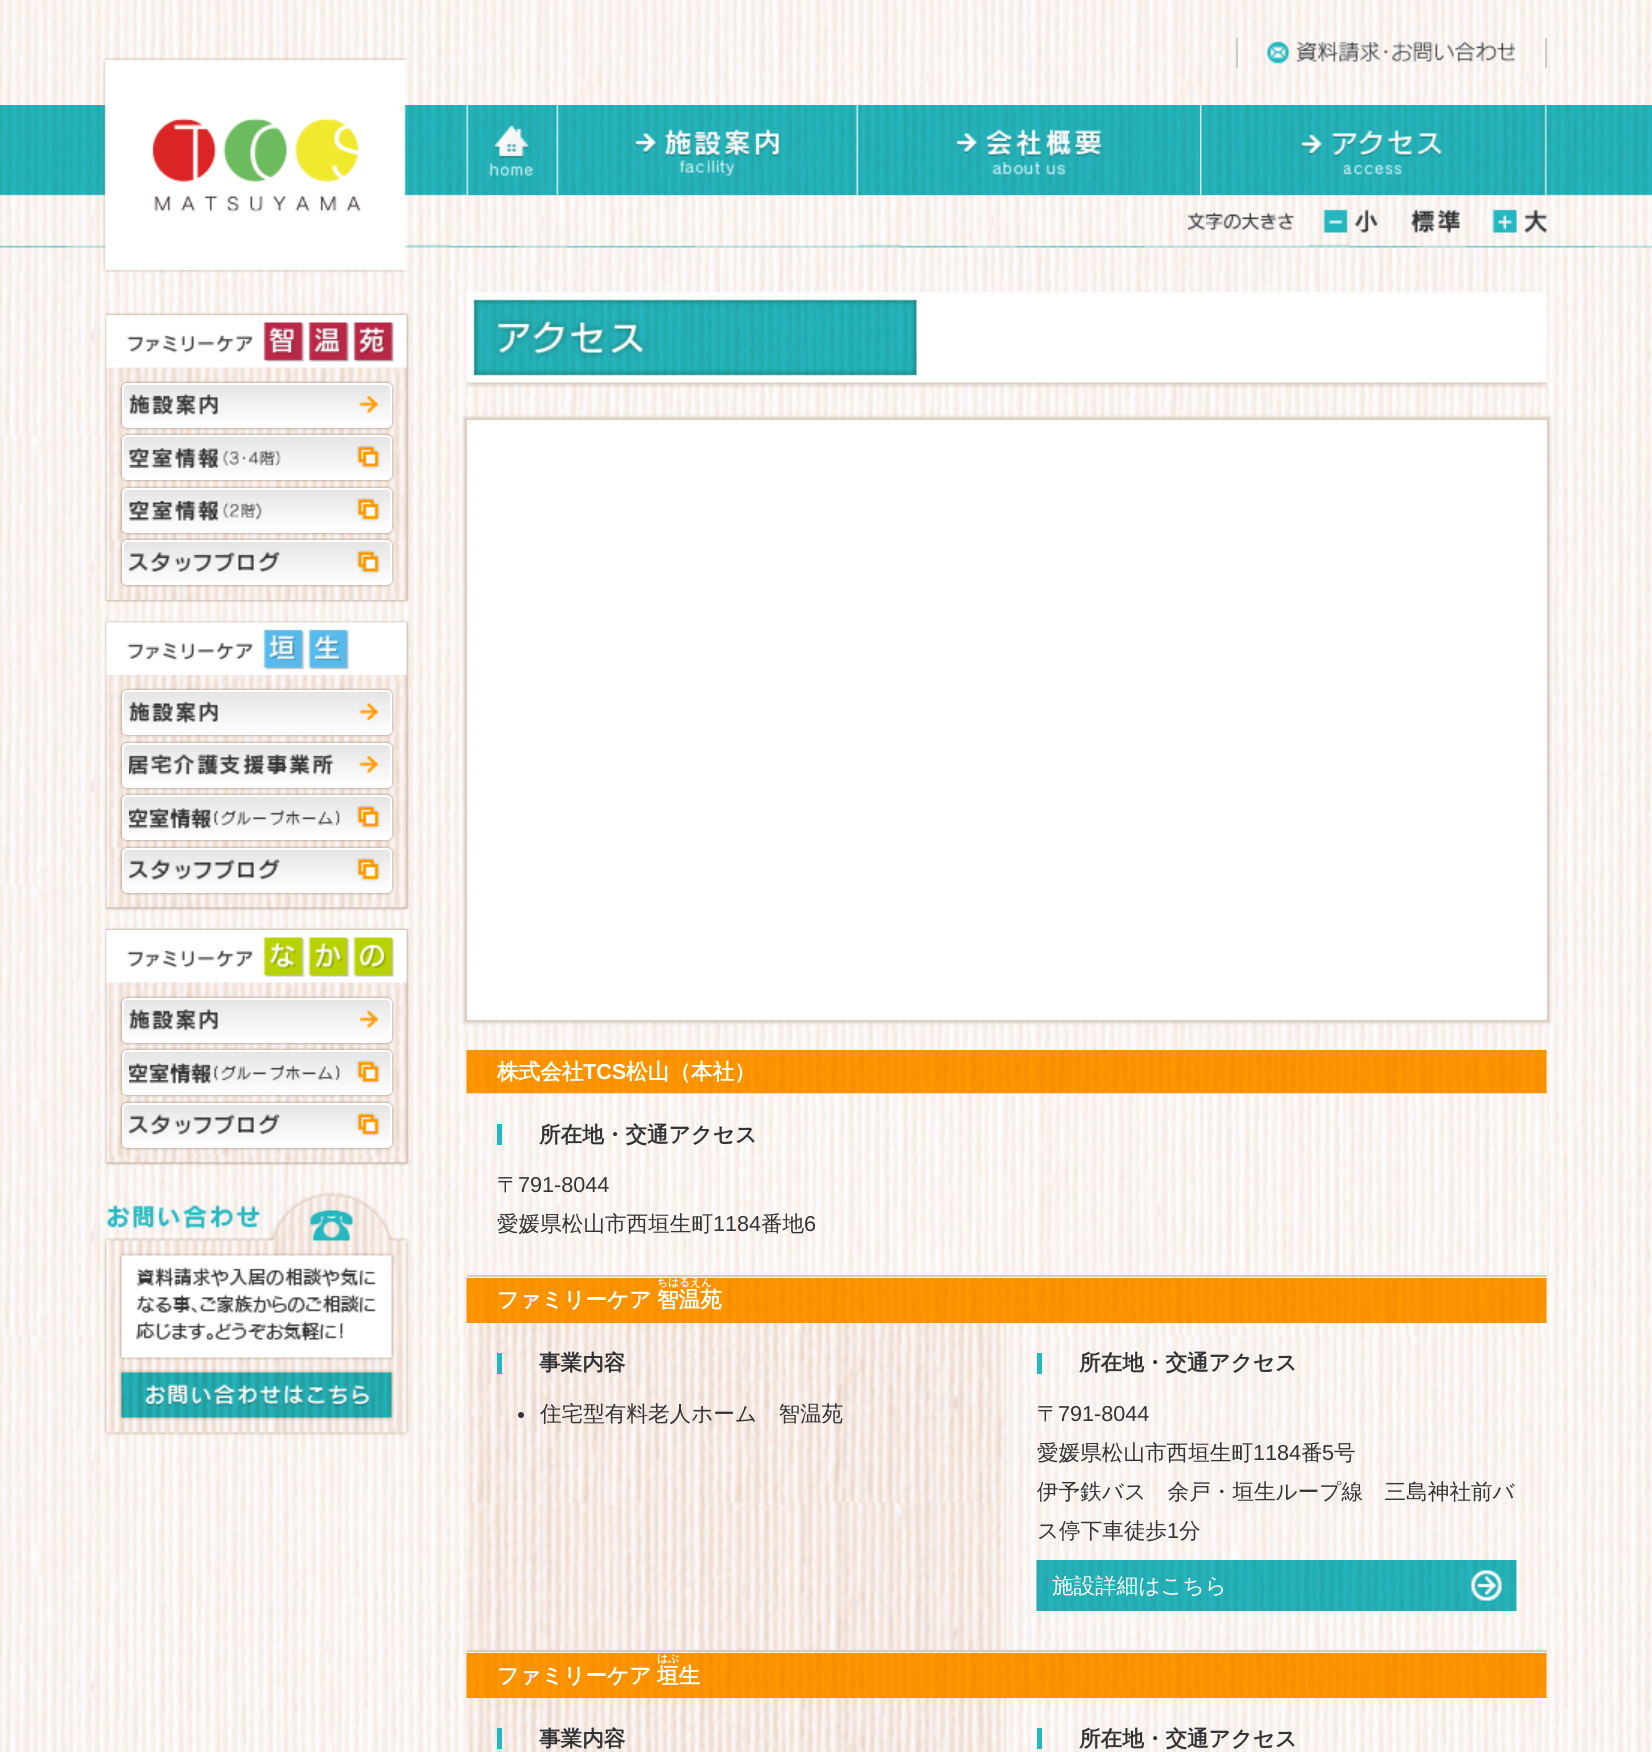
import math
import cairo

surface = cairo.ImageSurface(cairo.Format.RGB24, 1652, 1752)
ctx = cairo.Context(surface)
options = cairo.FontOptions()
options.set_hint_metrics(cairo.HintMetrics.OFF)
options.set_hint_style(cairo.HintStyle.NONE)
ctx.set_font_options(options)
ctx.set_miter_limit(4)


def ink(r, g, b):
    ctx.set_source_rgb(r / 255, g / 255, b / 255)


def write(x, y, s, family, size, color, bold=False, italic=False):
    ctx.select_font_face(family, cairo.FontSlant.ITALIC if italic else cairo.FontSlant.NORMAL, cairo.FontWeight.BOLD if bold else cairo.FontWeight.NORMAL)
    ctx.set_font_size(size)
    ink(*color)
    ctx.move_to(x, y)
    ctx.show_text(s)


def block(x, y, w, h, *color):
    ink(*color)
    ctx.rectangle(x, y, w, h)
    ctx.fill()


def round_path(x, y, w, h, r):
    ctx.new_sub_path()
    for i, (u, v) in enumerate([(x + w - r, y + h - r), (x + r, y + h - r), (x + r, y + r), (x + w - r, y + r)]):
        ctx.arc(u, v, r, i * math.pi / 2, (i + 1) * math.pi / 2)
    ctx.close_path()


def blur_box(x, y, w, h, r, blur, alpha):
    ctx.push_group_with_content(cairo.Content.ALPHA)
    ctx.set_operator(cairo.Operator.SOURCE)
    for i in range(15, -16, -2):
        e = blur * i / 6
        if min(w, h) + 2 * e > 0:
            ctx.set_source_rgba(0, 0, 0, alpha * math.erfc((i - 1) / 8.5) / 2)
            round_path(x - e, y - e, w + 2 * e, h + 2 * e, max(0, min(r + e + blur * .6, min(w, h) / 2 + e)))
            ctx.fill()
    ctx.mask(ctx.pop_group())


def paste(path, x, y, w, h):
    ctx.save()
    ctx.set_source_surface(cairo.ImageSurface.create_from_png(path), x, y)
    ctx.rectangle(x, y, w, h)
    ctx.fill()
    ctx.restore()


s1 = dict(family="WenQuanYi Zen Hei", size=21.6, color=(255, 255, 255), bold=True)
s2 = dict(family="Liberation Sans", size=21.6, color=(255, 255, 255), bold=True)
s3 = dict(family="WenQuanYi Zen Hei", size=21.6, color=(51, 51, 51), bold=True)
s4 = dict(family="WenQuanYi Zen Hei Medium", size=21.6, color=(51, 51, 51))
s5 = dict(family="Liberation Sans", size=21.6, color=(51, 51, 51))
s6 = dict(family="WenQuanYi Zen Hei", size=10.75, color=(255, 255, 255), bold=True)
s7 = dict(family="WenQuanYi Zen Hei Medium", size=21.6, color=(255, 255, 255))

ink(255, 255, 255)
ctx.paint()
paste("pic1.png", 0, 0, 1652, 1752)
paste("pic2.png", 0, 105, 1652, 143)
block(1545, 38, 2, 30, 204, 204, 204)
block(1236, 38, 2, 30, 204, 204, 204)
paste("pic3.png", 1267, 41, 248, 23)
paste("pic4.png", 102, 57, 307, 216)
paste("pic5.png", 466, 105, 91, 90)
paste("pic6.png", 556, 105, 301, 90)
paste("pic7.png", 856, 105, 344, 90)
paste("pic8.png", 1200, 105, 347, 90)
paste("pic9.png", 1188, 212, 107, 18)
paste("pic10.png", 1322, 209, 57, 24)
paste("pic11.png", 1411, 209, 49, 24)
paste("pic12.png", 1492, 209, 55, 24)
ink(152, 128, 108)
blur_box(107, 315, 300, 285, 0, 1.5, 1)
paste("pic13.png", 106, 315, 301, 285)
paste("pic14.png", 106, 315, 301, 53)
blur_box(122, 383, 270, 45, 5, 1.5, 1)
ctx.save()
round_path(122, 383, 270, 45, 5)
ctx.clip()
gradient = cairo.LinearGradient(257, 384, 257, 426)
gradient.add_color_stop_rgba(0, 0.898, 0.898, 0.898, 1)
gradient.add_color_stop_rgba(1, 1, 1, 1, 1)
ctx.set_source(gradient)
ctx.rectangle(122, 384, 270, 42)
ctx.fill()
ctx.restore()
round_path(123, 384, 268, 43, 4)
ink(255, 255, 255)
ctx.stroke()
paste("pic15.png", 129, 394, 89, 22)
paste("pic16.png", 359, 395, 20, 18)
ink(152, 128, 108)
blur_box(122, 435, 270, 45, 5, 1.5, 1)
ctx.save()
round_path(122, 435, 270, 45, 5)
ctx.clip()
gradient = cairo.LinearGradient(257, 437, 257, 479)
gradient.add_color_stop_rgba(0, 0.898, 0.898, 0.898, 1)
gradient.add_color_stop_rgba(1, 1, 1, 1, 1)
ctx.set_source(gradient)
ctx.rectangle(122, 437, 270, 42)
ctx.fill()
ctx.restore()
round_path(123, 436, 268, 43, 4)
ink(255, 255, 255)
ctx.stroke()
paste("pic17.png", 129, 448, 152, 20)
paste("pic18.png", 356, 445, 25, 24)
ink(152, 128, 108)
blur_box(122, 488, 270, 45, 5, 1.5, 1)
ctx.save()
round_path(122, 488, 270, 45, 5)
ctx.clip()
gradient = cairo.LinearGradient(257, 489, 257, 531)
gradient.add_color_stop_rgba(0, 0.898, 0.898, 0.898, 1)
gradient.add_color_stop_rgba(1, 1, 1, 1, 1)
ctx.set_source(gradient)
ctx.rectangle(122, 489, 270, 42)
ctx.fill()
ctx.restore()
round_path(123, 489, 268, 43, 4)
ink(255, 255, 255)
ctx.stroke()
paste("pic19.png", 129, 501, 133, 20)
paste("pic20.png", 356, 497, 25, 25)
ink(152, 128, 108)
blur_box(122, 540, 270, 45, 5, 1.5, 1)
ctx.save()
round_path(122, 540, 270, 45, 5)
ctx.clip()
gradient = cairo.LinearGradient(257, 542, 257, 584)
gradient.add_color_stop_rgba(0, 0.898, 0.898, 0.898, 1)
gradient.add_color_stop_rgba(1, 1, 1, 1, 1)
ctx.set_source(gradient)
ctx.rectangle(122, 542, 270, 42)
ctx.fill()
ctx.restore()
round_path(123, 541, 268, 43, 4)
ink(255, 255, 255)
ctx.stroke()
paste("pic21.png", 129, 551, 151, 21)
paste("pic18.png", 356, 550, 25, 24)
ink(152, 128, 108)
blur_box(107, 623, 300, 285, 0, 1.5, 1)
paste("pic22.png", 106, 622, 301, 286)
paste("pic23.png", 106, 622, 301, 53)
blur_box(122, 690, 270, 45, 5, 1.5, 1)
ctx.save()
round_path(122, 690, 270, 45, 5)
ctx.clip()
gradient = cairo.LinearGradient(257, 692, 257, 734)
gradient.add_color_stop_rgba(0, 0.898, 0.898, 0.898, 1)
gradient.add_color_stop_rgba(1, 1, 1, 1, 1)
ctx.set_source(gradient)
ctx.rectangle(122, 692, 270, 42)
ctx.fill()
ctx.restore()
round_path(123, 691, 268, 43, 4)
ink(255, 255, 255)
ctx.stroke()
paste("pic24.png", 129, 701, 89, 23)
paste("pic25.png", 359, 703, 20, 18)
ink(152, 128, 108)
blur_box(122, 743, 270, 45, 5, 1.5, 1)
ctx.save()
round_path(122, 743, 270, 45, 5)
ctx.clip()
gradient = cairo.LinearGradient(257, 744, 257, 786)
gradient.add_color_stop_rgba(0, 0.898, 0.898, 0.898, 1)
gradient.add_color_stop_rgba(1, 1, 1, 1, 1)
ctx.set_source(gradient)
ctx.rectangle(122, 744, 270, 42)
ctx.fill()
ctx.restore()
round_path(123, 744, 268, 43, 4)
ink(255, 255, 255)
ctx.stroke()
paste("pic26.png", 129, 754, 205, 22)
paste("pic16.png", 359, 755, 20, 18)
ink(152, 128, 108)
blur_box(122, 795, 270, 45, 5, 1.5, 1)
ctx.save()
round_path(122, 795, 270, 45, 5)
ctx.clip()
gradient = cairo.LinearGradient(257, 797, 257, 839)
gradient.add_color_stop_rgba(0, 0.898, 0.898, 0.898, 1)
gradient.add_color_stop_rgba(1, 1, 1, 1, 1)
ctx.set_source(gradient)
ctx.rectangle(122, 797, 270, 42)
ctx.fill()
ctx.restore()
round_path(123, 796, 268, 43, 4)
ink(255, 255, 255)
ctx.stroke()
paste("pic27.png", 129, 808, 212, 21)
paste("pic18.png", 356, 805, 25, 24)
ink(152, 128, 108)
blur_box(122, 848, 270, 45, 5, 1.5, 1)
ctx.save()
round_path(122, 848, 270, 45, 5)
ctx.clip()
gradient = cairo.LinearGradient(257, 849, 257, 891)
gradient.add_color_stop_rgba(0, 0.898, 0.898, 0.898, 1)
gradient.add_color_stop_rgba(1, 1, 1, 1, 1)
ctx.set_source(gradient)
ctx.rectangle(122, 849, 270, 42)
ctx.fill()
ctx.restore()
round_path(123, 849, 268, 43, 4)
ink(255, 255, 255)
ctx.stroke()
paste("pic28.png", 129, 859, 151, 21)
paste("pic20.png", 356, 857, 25, 25)
ink(152, 128, 108)
blur_box(107, 930, 300, 233, 0, 1.5, 1)
paste("pic29.png", 106, 930, 301, 233)
paste("pic30.png", 106, 930, 301, 53)
blur_box(122, 998, 270, 45, 5, 1.5, 1)
ctx.save()
round_path(122, 998, 270, 45, 5)
ctx.clip()
gradient = cairo.LinearGradient(257, 999, 257, 1041)
gradient.add_color_stop_rgba(0, 0.898, 0.898, 0.898, 1)
gradient.add_color_stop_rgba(1, 1, 1, 1, 1)
ctx.set_source(gradient)
ctx.rectangle(122, 999, 270, 42)
ctx.fill()
ctx.restore()
round_path(123, 999, 268, 43, 4)
ink(255, 255, 255)
ctx.stroke()
paste("pic15.png", 129, 1009, 89, 22)
paste("pic16.png", 359, 1010, 20, 18)
ink(152, 128, 108)
blur_box(122, 1050, 270, 45, 5, 1.5, 1)
ctx.save()
round_path(122, 1050, 270, 45, 5)
ctx.clip()
gradient = cairo.LinearGradient(257, 1052, 257, 1094)
gradient.add_color_stop_rgba(0, 0.898, 0.898, 0.898, 1)
gradient.add_color_stop_rgba(1, 1, 1, 1, 1)
ctx.set_source(gradient)
ctx.rectangle(122, 1052, 270, 42)
ctx.fill()
ctx.restore()
round_path(123, 1051, 268, 43, 4)
ink(255, 255, 255)
ctx.stroke()
paste("pic27.png", 129, 1063, 212, 21)
paste("pic18.png", 356, 1060, 25, 24)
ink(152, 128, 108)
blur_box(122, 1103, 270, 45, 5, 1.5, 1)
ctx.save()
round_path(122, 1103, 270, 45, 5)
ctx.clip()
gradient = cairo.LinearGradient(257, 1104, 257, 1146)
gradient.add_color_stop_rgba(0, 0.898, 0.898, 0.898, 1)
gradient.add_color_stop_rgba(1, 1, 1, 1, 1)
ctx.set_source(gradient)
ctx.rectangle(122, 1104, 270, 42)
ctx.fill()
ctx.restore()
round_path(123, 1104, 268, 43, 4)
ink(255, 255, 255)
ctx.stroke()
paste("pic28.png", 129, 1114, 151, 21)
paste("pic20.png", 356, 1112, 25, 25)
paste("pic31.png", 103, 1192, 307, 244)
paste("pic32.png", 466, 292, 1081, 100)
ink(217, 204, 191)
blur_box(464, 417, 1086, 606, 0, 1.5, 1)
block(467, 420, 1080, 600, 255, 255, 255)
paste("pic33.png", 466, 1050, 541, 227)
block(467, 1275, 1080, 2, 217, 204, 191)
paste("pic34.png", 466, 1050, 1081, 44)
write(497, 1079, "株式会社", **s1)
write(583, 1079, "TCS", **s2)
write(626, 1079, "松山（本社）", **s1)
paste("pic35.png", 466, 1093, 1081, 182)
block(497, 1124, 5, 21, 37, 183, 192)
write(539, 1142, "所在地・交通アクセス", **s3)
write(497, 1192, "〒", **s4)
write(518, 1192, "791-8044", **s5)
write(497, 1231, "愛媛県松山市西垣生町", **s4)
write(713, 1231, "1184", **s5)
write(761, 1231, "番地", **s4)
write(804, 1231, "6", **s5)
paste("pic36.png", 466, 1278, 541, 374)
block(467, 1650, 1080, 2, 217, 204, 191)
paste("pic37.png", 466, 1278, 1081, 45)
write(497, 1307, "ファミリーケア", **s1)
write(657, 1286, "ちはるえん", **s6)
write(657, 1307, "智温苑", **s1)
block(497, 1353, 5, 21, 37, 183, 192)
write(539, 1370, "事業内容", **s3)
ctx.new_path()
ctx.arc(521, 1415, 3, 0, 2 * math.pi)
ctx.fill()
write(540, 1421, "住宅型有料老人ホーム　智温苑", **s4)
block(1037, 1353, 5, 21, 37, 183, 192)
write(1079, 1370, "所在地・交通アクセス", **s3)
write(1037, 1421, "〒", **s4)
write(1058, 1421, "791-8044", **s5)
write(1037, 1460, "愛媛県松山市西垣生町", **s4)
write(1253, 1460, "1184", **s5)
write(1301, 1460, "番", **s4)
write(1322, 1460, "5", **s5)
write(1334, 1460, "号", **s4)
write(1037, 1499, "伊予鉄バス　余戸・垣生ループ線　三島神社前バ", **s4)
write(1037, 1538, "ス停下車徒歩", **s4)
write(1167, 1538, "1", **s5)
write(1179, 1538, "分", **s4)
paste("pic38.png", 1036, 1560, 481, 51)
paste("pic39.png", 1471, 1570, 31, 31)
write(1052, 1593, "施設詳細はこちら", **s7)
paste("pic40.png", 466, 1653, 541, 99)
paste("pic41.png", 466, 1653, 1081, 45)
write(497, 1683, "ファミリーケア", **s1)
write(657, 1662, "はぶ", **s6)
write(657, 1683, "垣生", **s1)
block(497, 1728, 5, 21, 37, 183, 192)
write(539, 1746, "事業内容", **s3)
block(1037, 1728, 5, 21, 37, 183, 192)
write(1079, 1746, "所在地・交通アクセス", **s3)
surface.write_to_png("screenshot.png")
